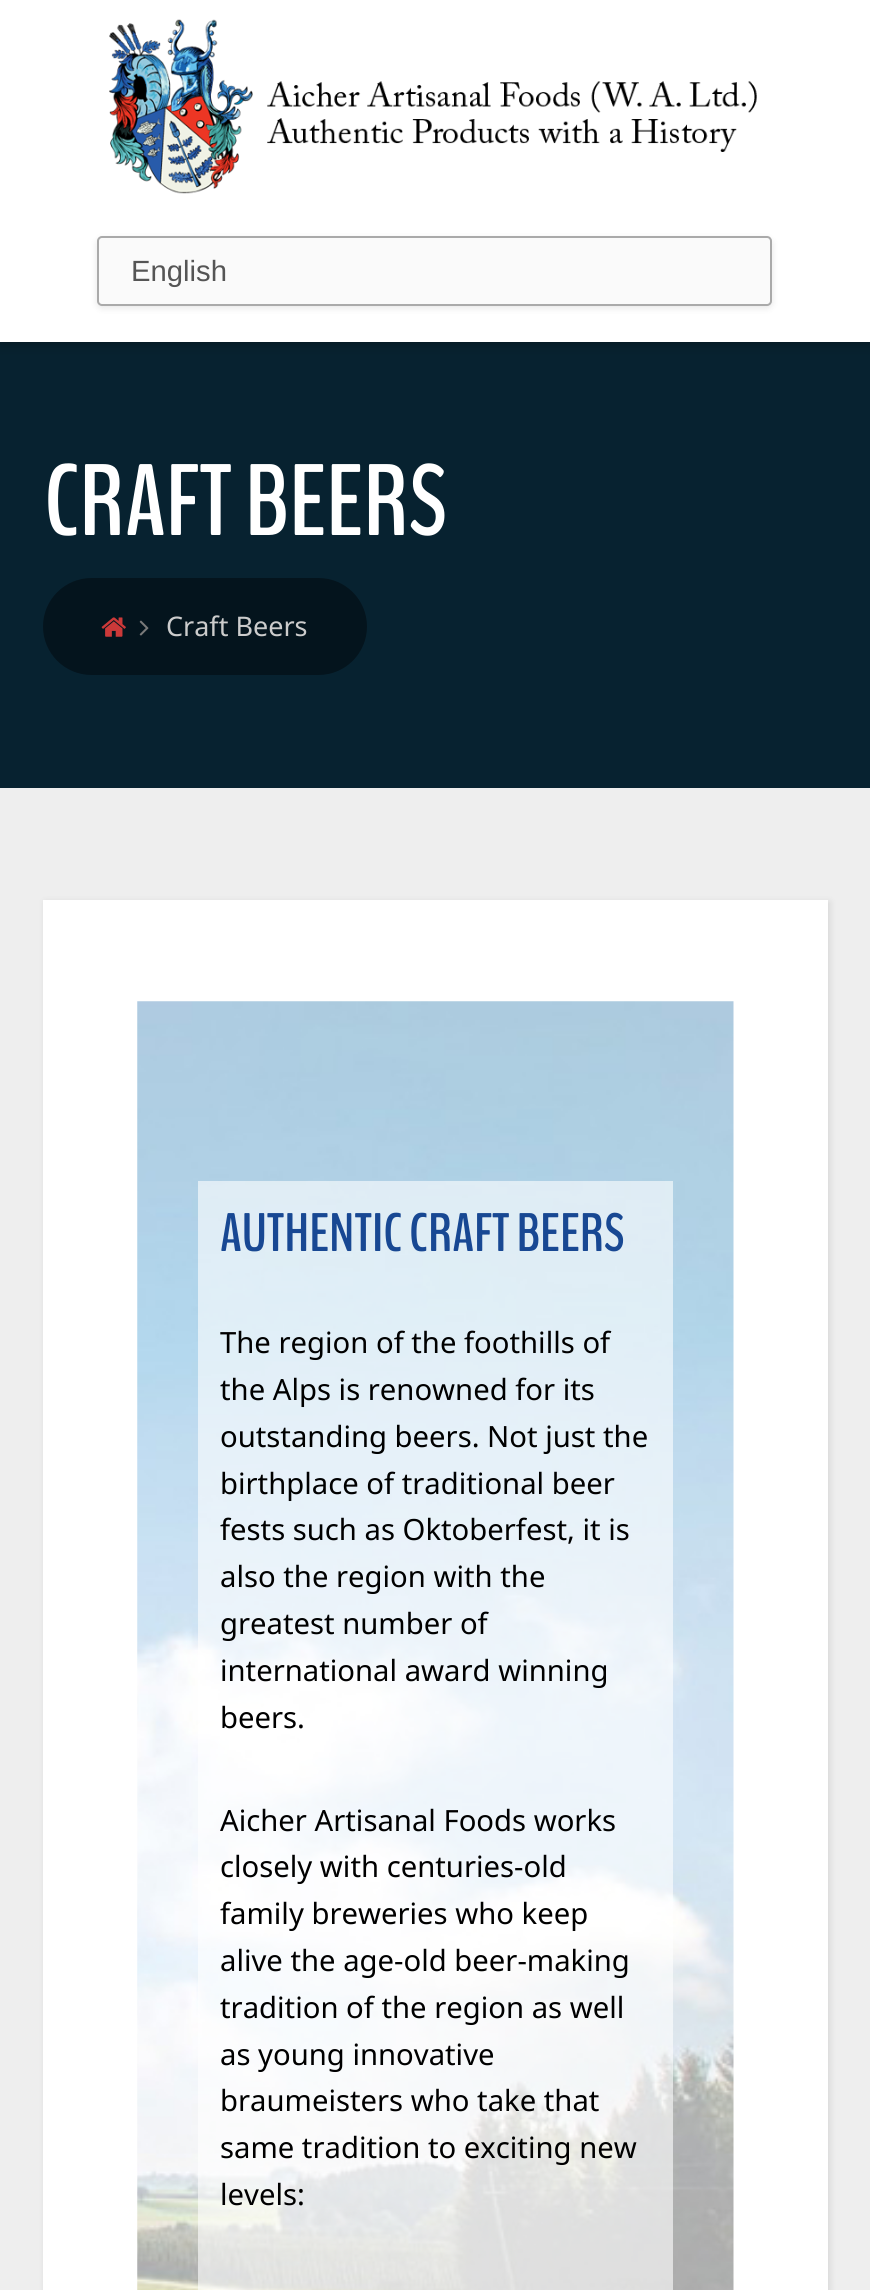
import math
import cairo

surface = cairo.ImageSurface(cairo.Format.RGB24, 870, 2290)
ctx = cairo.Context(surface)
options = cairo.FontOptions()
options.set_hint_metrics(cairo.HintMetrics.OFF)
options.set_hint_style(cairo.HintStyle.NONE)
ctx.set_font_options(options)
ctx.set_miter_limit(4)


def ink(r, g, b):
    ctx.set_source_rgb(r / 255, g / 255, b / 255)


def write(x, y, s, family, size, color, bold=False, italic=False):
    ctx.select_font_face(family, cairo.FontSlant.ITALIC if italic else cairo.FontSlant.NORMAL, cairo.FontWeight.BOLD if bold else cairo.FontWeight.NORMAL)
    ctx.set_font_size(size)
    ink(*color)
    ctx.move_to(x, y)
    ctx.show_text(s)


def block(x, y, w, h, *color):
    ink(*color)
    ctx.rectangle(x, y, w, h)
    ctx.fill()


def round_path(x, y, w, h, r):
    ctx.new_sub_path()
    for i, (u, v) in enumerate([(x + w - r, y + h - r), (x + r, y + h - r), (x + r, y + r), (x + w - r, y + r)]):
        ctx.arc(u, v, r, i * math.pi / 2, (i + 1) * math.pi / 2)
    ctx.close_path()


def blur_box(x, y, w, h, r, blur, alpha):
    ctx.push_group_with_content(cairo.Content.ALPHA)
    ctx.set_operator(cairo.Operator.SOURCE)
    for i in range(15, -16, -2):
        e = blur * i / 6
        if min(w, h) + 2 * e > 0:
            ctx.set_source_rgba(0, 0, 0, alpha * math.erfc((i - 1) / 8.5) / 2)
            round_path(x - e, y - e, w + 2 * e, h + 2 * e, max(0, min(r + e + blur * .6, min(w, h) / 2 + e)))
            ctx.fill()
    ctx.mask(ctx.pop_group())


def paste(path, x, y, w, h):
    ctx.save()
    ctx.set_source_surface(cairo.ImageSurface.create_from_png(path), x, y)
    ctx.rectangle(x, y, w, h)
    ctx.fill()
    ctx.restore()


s1 = dict(family="Liberation Sans", size=29.25, color=(85, 85, 85))
s2 = dict(family="BenchNine", size=101, color=(255, 255, 255), bold=True)
s3 = dict(family="Noto Sans", size=27, color=(204, 204, 204))
s4 = dict(family="BenchNine", size=54, color=(24, 72, 147), bold=True)
s5 = dict(family="Noto Sans", size=29.25, color=(0, 0, 0))

ink(7, 34, 48)
ctx.paint()
ink(0, 0, 0)
blur_box(0, 0, 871, 342, 0, 7, 0.4)
block(0, 0, 870, 342, 255, 255, 255)
paste("pic1.png", 109, 19, 648, 175)
ink(0, 0, 0)
blur_box(97, 239, 675, 69, 5, 3.5, 0.1)
ink(250, 250, 250)
round_path(98, 237, 673, 68, 4)
ctx.fill_preserve()
ink(170, 170, 170)
ctx.stroke()
write(131, 281, "English", **s1)
write(44, 535, "CRAFT BEERS", **s2)
ink(4, 20, 29)
round_path(43, 578, 324, 97, 48.5)
ctx.fill()
paste("pic2.png", 101, 617, 25, 20)
paste("pic3.png", 139, 620, 10, 16)
write(166, 636, "Craft Beers", **s3)
block(0, 788, 870, 1502, 238, 238, 238)
ink(0, 0, 0)
blur_box(45, 902, 785, 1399, 0, 3.5, 0.1)
block(43, 900, 785, 1390, 255, 255, 255)
paste("pic4.png", 137, 1001, 597, 1289)
ctx.set_source_rgba(1, 1, 1, 0.6)
ctx.rectangle(198, 1181, 475, 1109)
ctx.fill()
write(220, 1251, "AUTHENTIC CRAFT BEERS", **s4)
write(220, 1353, "The region of the foothills of", **s5)
write(220, 1400, "the Alps is renowned for its", **s5)
write(220, 1447, "outstanding beers. Not just the", **s5)
write(220, 1494, "birthplace of traditional beer", **s5)
write(220, 1540, "fests such as Oktoberfest, it is", **s5)
write(220, 1587, "also the region with the", **s5)
write(220, 1634, "greatest number of", **s5)
write(220, 1681, "international award winning", **s5)
write(220, 1728, "beers.", **s5)
write(220, 1831, "Aicher Artisanal Foods works", **s5)
write(220, 1877, "closely with centuries-old", **s5)
write(220, 1924, "family breweries who keep", **s5)
write(220, 1971, "alive the age-old beer-making", **s5)
write(220, 2018, "tradition of the region as well", **s5)
write(220, 2065, "as young innovative", **s5)
write(220, 2111, "braumeisters who take that", **s5)
write(220, 2158, "same tradition to exciting new", **s5)
write(220, 2205, "levels:", **s5)
surface.write_to_png("screenshot.png")
